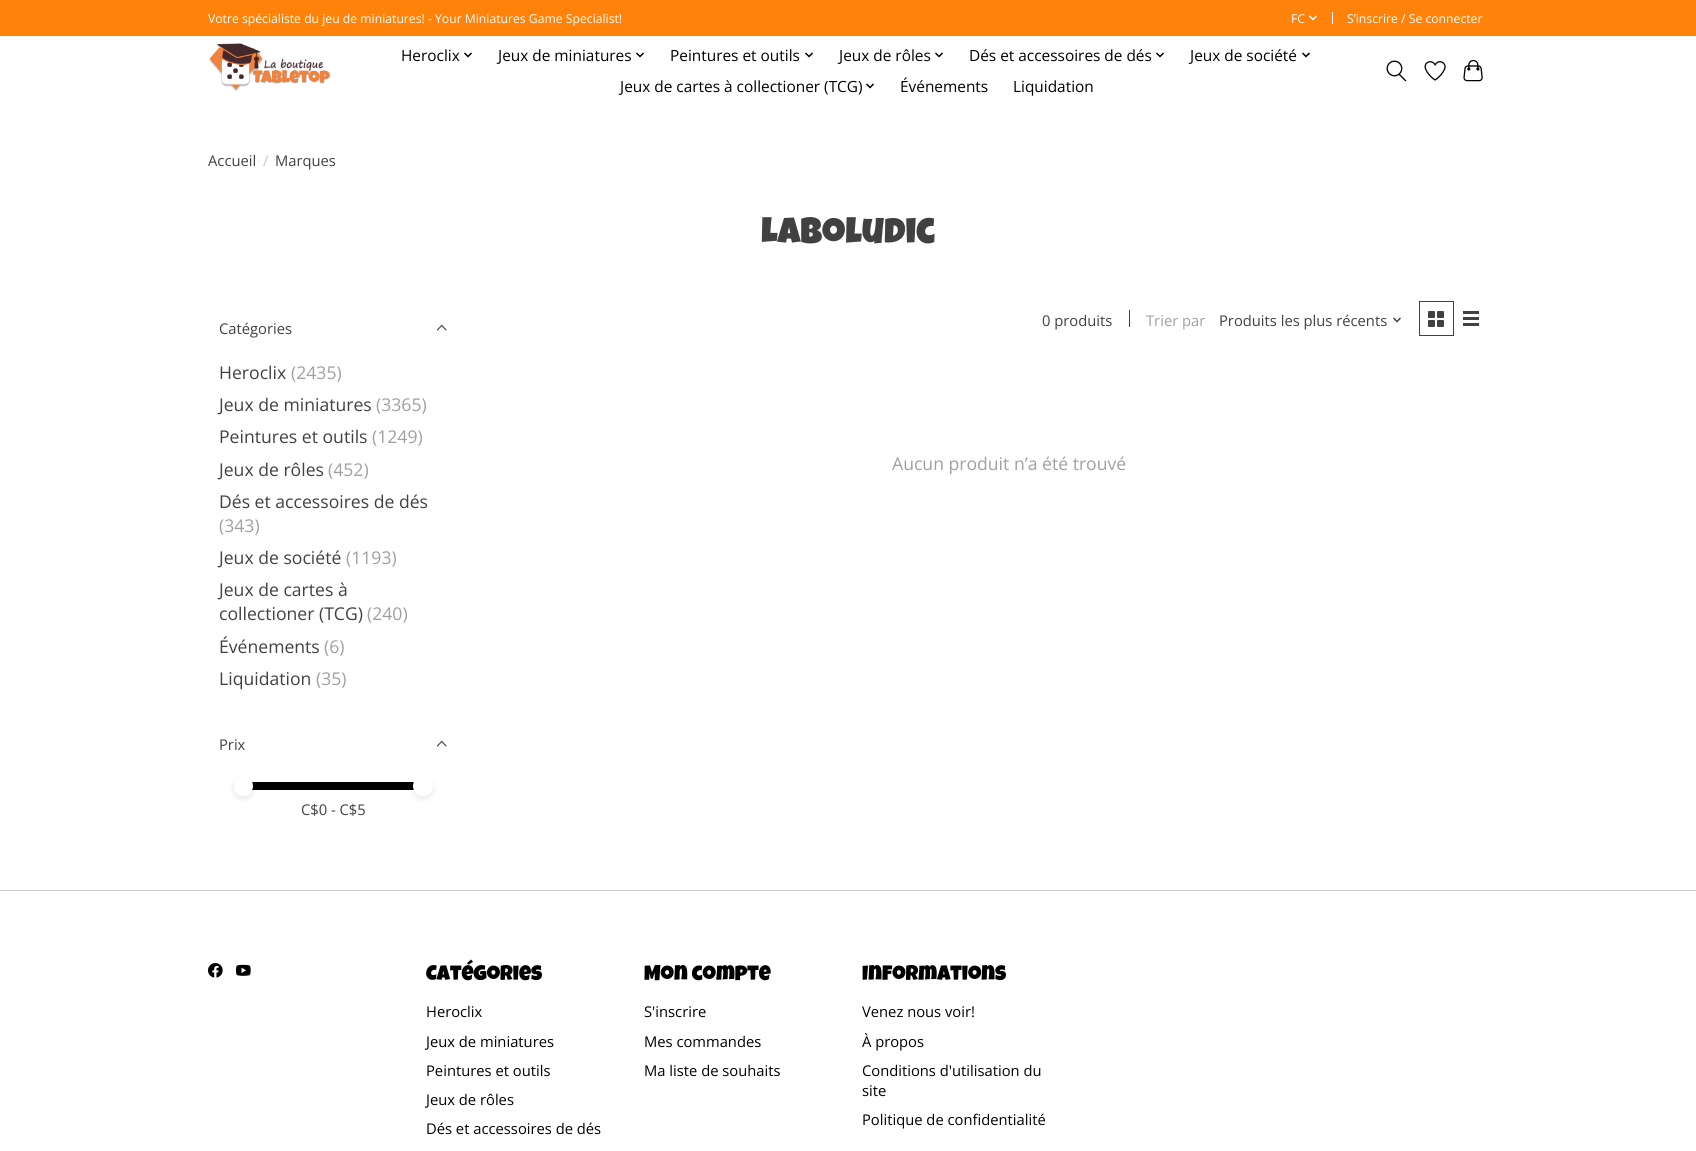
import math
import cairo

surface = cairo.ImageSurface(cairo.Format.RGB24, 1696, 1151)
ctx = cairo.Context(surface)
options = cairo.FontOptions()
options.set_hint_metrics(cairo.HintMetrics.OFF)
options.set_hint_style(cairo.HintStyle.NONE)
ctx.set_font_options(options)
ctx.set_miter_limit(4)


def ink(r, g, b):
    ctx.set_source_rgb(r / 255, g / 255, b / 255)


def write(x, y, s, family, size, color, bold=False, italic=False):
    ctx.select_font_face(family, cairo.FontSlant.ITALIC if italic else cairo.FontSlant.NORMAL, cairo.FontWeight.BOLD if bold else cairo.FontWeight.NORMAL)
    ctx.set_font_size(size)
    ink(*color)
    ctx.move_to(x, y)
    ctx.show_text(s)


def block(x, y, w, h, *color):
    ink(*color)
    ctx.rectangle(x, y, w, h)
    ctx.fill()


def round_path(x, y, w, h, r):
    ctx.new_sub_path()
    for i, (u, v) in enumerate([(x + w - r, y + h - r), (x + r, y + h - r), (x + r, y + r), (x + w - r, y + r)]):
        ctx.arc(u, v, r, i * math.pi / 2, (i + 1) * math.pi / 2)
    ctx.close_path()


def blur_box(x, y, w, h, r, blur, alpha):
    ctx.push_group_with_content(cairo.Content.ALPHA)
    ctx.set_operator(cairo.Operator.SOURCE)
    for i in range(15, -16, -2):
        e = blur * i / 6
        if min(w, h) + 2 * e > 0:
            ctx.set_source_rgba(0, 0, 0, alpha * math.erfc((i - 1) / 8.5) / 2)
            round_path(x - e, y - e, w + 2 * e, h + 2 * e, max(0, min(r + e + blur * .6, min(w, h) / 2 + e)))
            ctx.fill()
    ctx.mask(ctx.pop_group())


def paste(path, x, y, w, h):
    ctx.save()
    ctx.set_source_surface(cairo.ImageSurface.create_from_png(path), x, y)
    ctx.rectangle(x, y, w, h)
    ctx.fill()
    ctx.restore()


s1 = dict(family="Open Sans", size=12.2, color=(255, 255, 255))
s2 = dict(family="Open Sans", size=15.4, color=(0, 0, 0))
s3 = dict(family="Open Sans", size=14.75, color=(65, 65, 65))
s4 = dict(family="Open Sans", size=14.75, color=(198, 198, 198))
s5 = dict(family="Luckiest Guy", size=36.5, color=(65, 65, 65))
s6 = dict(family="Open Sans", size=17.6, color=(65, 65, 65))
s7 = dict(family="Open Sans", size=17.6, color=(160, 160, 160))
s8 = dict(family="Open Sans", size=14.75, color=(160, 160, 160))
s9 = dict(family="Luckiest Guy", size=21, color=(0, 0, 0))
s10 = dict(family="Open Sans", size=14.75, color=(0, 0, 0))

ink(255, 255, 255)
ctx.paint()
block(0, 0, 1696, 36, 255, 131, 11)
write(208, 23, "Votre spécialiste du jeu de miniatures! - Your Miniatures Game Specialist!", **s1)
write(1291, 23, "FC", **s1)
paste("pic1.png", 1309, 15, 8, 6)
block(1332, 12, 1, 12, 255, 255, 255)
write(1347, 23, "S’inscrire / Se connecter", **s1)
paste("pic2.png", 209, 43, 122, 48)
write(401, 61, "Heroclix", **s2)
paste("pic3.png", 464, 52, 8, 6)
write(498, 61, "Jeux de miniatures", **s2)
paste("pic3.png", 636, 52, 8, 6)
write(670, 61, "Peintures et outils", **s2)
paste("pic3.png", 805, 52, 8, 6)
write(839, 61, "Jeux de rôles", **s2)
paste("pic3.png", 935, 52, 8, 6)
write(969, 61, "Dés et accessoires de dés", **s2)
paste("pic3.png", 1156, 52, 8, 6)
write(1190, 61, "Jeux de société", **s2)
paste("pic3.png", 1302, 52, 8, 6)
write(620, 92, "Jeux de cartes à collectioner (TCG)", **s2)
paste("pic3.png", 866, 83, 8, 6)
write(900, 92, "Événements", **s2)
write(1013, 92, "Liquidation", **s2)
paste("pic4.png", 1386, 60, 21, 22)
paste("pic5.png", 1424, 61, 22, 20)
paste("pic6.png", 1463, 60, 20, 22)
write(208, 166, "Accueil", **s3)
write(263, 166, "/", **s4)
write(275, 166, "Marques", **s3)
write(761, 243, "Laboludic", **s5)
write(219, 334, "Catégories", **s3)
paste("pic7.png", 436, 324, 11, 7)
write(219, 379, "Heroclix", **s6)
write(291, 379, "(2435)", **s7)
write(219, 411, "Jeux de miniatures", **s6)
write(376, 411, "(3365)", **s7)
write(219, 443, "Peintures et outils", **s6)
write(372, 443, "(1249)", **s7)
write(219, 476, "Jeux de rôles", **s6)
write(328, 476, "(452)", **s7)
write(219, 508, "Dés et accessoires de dés", **s6)
write(219, 532, "(343)", **s7)
write(219, 564, "Jeux de société", **s6)
write(346, 564, "(1193)", **s7)
write(219, 596, "Jeux de cartes à", **s6)
write(219, 620, "collectioner (TCG)", **s6)
write(367, 620, "(240)", **s7)
write(219, 653, "Événements", **s6)
write(324, 653, "(6)", **s7)
write(219, 685, "Liquidation", **s6)
write(316, 685, "(35)", **s7)
write(219, 750, "Prix", **s3)
paste("pic7.png", 436, 740, 11, 7)
ink(0, 0, 0)
ctx.new_path()
ctx.move_to(237, 782)
ctx.line_to(423, 782)
ctx.line_to(423, 790)
ctx.line_to(237, 790)
ctx.curve_to(235, 790, 233, 788, 233, 786)
ctx.curve_to(233, 784, 235, 782, 237, 782)
ctx.close_path()
ctx.fill()
ink(0, 0, 0)
blur_box(233, 779, 20, 20, 10, 3, 0.08)
ink(255, 255, 255)
ctx.arc(243, 786, 10, 0, 2 * math.pi)
ctx.fill()
write(301, 815, "C$0 - C$5", **s3)
ink(0, 0, 0)
blur_box(413, 779, 20, 20, 10, 3, 0.08)
ink(255, 255, 255)
ctx.arc(423, 786, 10, 0, 2 * math.pi)
ctx.fill()
write(1042, 326, "0 produits", **s3)
block(1129, 310, 1, 17, 65, 65, 65)
write(1146, 326, "Trier par", **s8)
write(1219, 326, "Produits les plus récents", **s3)
paste("pic8.png", 1393, 317, 8, 6)
ctx.rectangle(1419.5, 301.5, 34, 34)
ctx.set_line_width(1)
ctx.stroke()
paste("pic9.png", 1428, 311, 16, 16)
block(1463, 311, 16, 3, 65, 65, 65)
block(1463, 317, 16, 3, 65, 65, 65)
block(1463, 323, 16, 3, 65, 65, 65)
write(892, 470, "Aucun produit n’a été trouvé", **s7)
block(0, 890, 1696, 1, 204, 204, 204)
paste("pic10.png", 208, 963, 15, 15)
paste("pic11.png", 236, 964, 15, 12)
write(426, 980, "Catégories", **s9)
write(426, 1017, "Heroclix", **s10)
write(426, 1047, "Jeux de miniatures", **s10)
write(426, 1076, "Peintures et outils", **s10)
write(426, 1105, "Jeux de rôles", **s10)
write(426, 1134, "Dés et accessoires de dés", **s10)
write(644, 980, "Mon compte", **s9)
write(644, 1017, "S'inscrire", **s10)
write(644, 1047, "Mes commandes", **s10)
write(644, 1076, "Ma liste de souhaits", **s10)
write(862, 980, "Informations", **s9)
write(862, 1017, "Venez nous voir!", **s10)
write(862, 1047, "À propos", **s10)
write(862, 1076, "Conditions d'utilisation du", **s10)
write(862, 1096, "site", **s10)
write(862, 1125, "Politique de confidentialité", **s10)
surface.write_to_png("screenshot.png")
